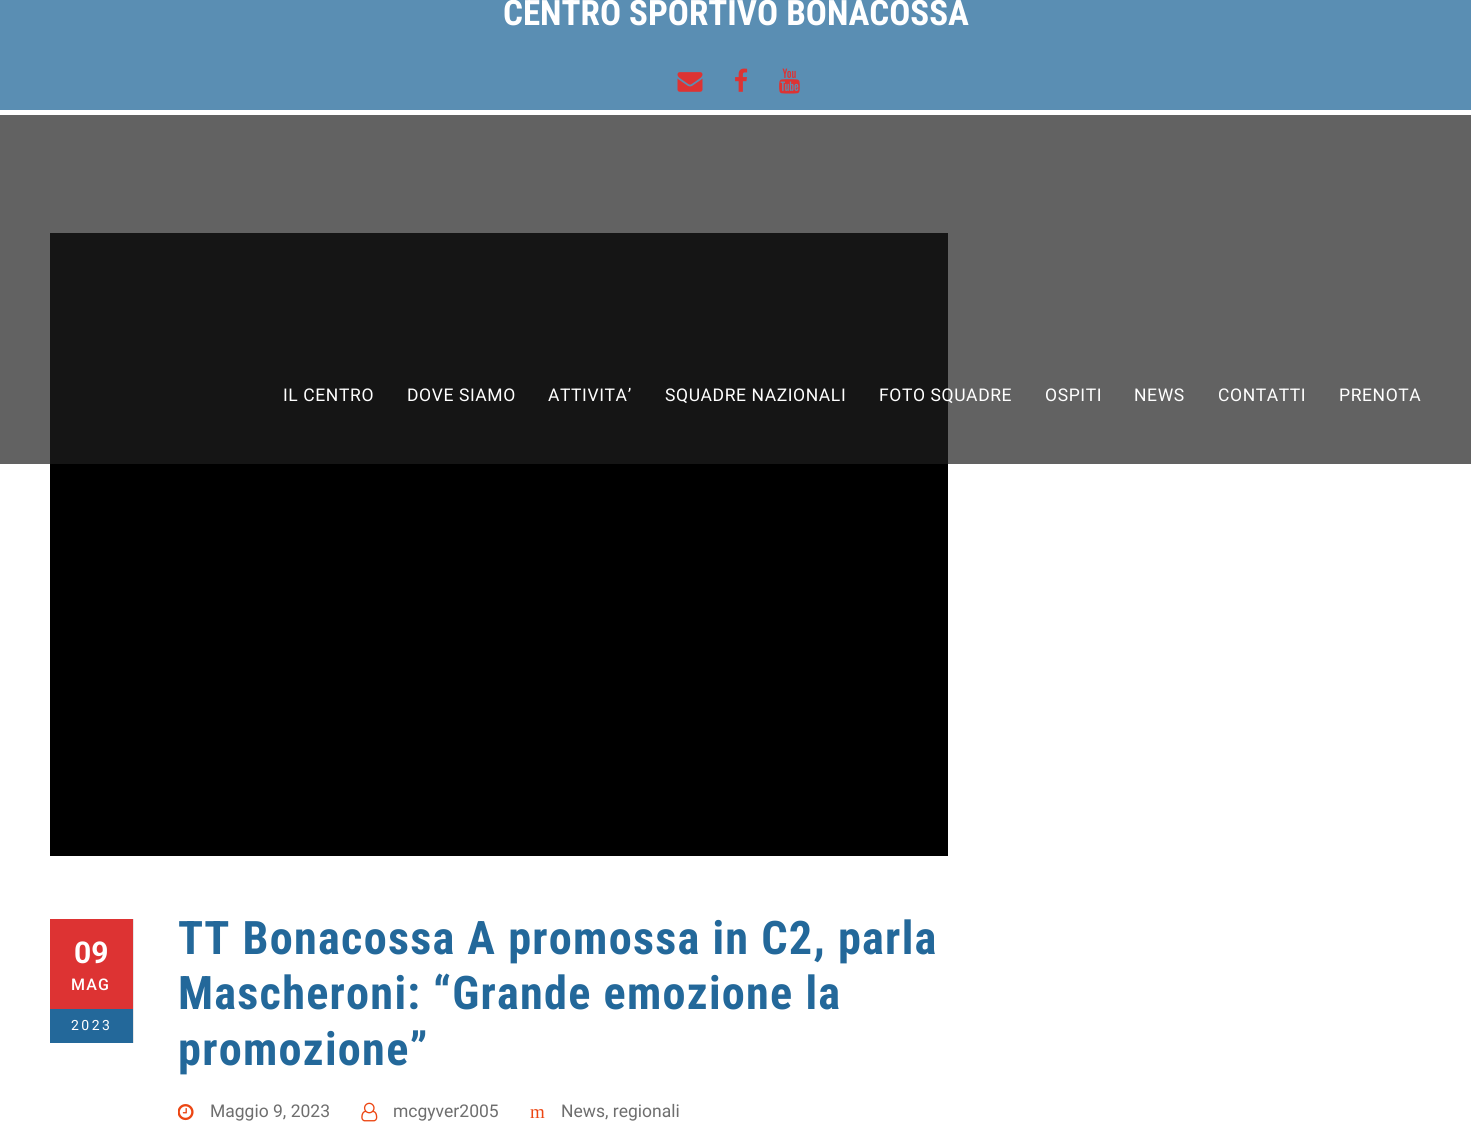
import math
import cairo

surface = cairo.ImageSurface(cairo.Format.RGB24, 1471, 1126)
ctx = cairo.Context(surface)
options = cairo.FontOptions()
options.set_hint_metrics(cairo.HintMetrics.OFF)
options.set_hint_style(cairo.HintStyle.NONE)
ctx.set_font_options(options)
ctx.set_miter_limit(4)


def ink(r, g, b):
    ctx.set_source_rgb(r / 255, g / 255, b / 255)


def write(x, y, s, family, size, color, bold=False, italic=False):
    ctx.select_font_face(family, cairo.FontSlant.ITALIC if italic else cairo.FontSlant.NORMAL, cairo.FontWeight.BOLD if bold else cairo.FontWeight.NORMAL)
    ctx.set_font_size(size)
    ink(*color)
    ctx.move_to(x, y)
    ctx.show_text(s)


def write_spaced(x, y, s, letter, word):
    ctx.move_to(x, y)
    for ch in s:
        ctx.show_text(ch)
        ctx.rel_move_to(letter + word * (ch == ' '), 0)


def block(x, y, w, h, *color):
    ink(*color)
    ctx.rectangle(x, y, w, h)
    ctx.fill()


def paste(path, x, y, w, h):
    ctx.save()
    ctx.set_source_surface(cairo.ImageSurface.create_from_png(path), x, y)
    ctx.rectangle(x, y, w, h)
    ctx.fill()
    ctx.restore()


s1 = dict(family="Roboto Condensed", size=35, color=(255, 255, 255), bold=True)
s2 = dict(family="Roboto", size=30, color=(255, 255, 255), bold=True)
s3 = dict(family="Roboto", size=17.5, color=(110, 110, 110))
s4 = dict(family="Liberation Serif", size=19, color=(236, 70, 19))

ink(255, 255, 255)
ctx.paint()
block(0, 115, 1471, 349, 98, 98, 98)
block(0, 0, 1471, 110, 90, 142, 179)
write(503, 25, "CENTRO SPORTIVO BONACOSSA", **s1)
paste("pic1.png", 677, 72, 26, 20)
paste("pic2.png", 735, 68, 13, 24)
paste("pic3.png", 779, 68, 21, 26)
block(50, 233, 898, 231, 21, 21, 21)
ctx.select_font_face("Roboto")
ctx.set_font_size(17.5)
ink(255, 255, 255)
write_spaced(283, 401, "IL CENTRO", 0.6, 0)
write_spaced(407, 401, "DOVE SIAMO", 0.6, 0)
write_spaced(548, 401, "ATTIVITA’", 0.6, 0)
write_spaced(665, 401, "SQUADRE NAZIONALI", 0.6, 0)
write_spaced(879, 401, "FOTO SQUADRE", 0.6, 0)
write_spaced(1045, 401, "OSPITI", 0.6, 0)
write_spaced(1134, 401, "NEWS", 0.6, 0)
write_spaced(1218, 401, "CONTATTI", 0.6, 0)
write_spaced(1339, 401, "PRENOTA", 0.6, 0)
block(50, 464, 898, 392, 0, 0, 0)
block(50, 919, 83, 90, 221, 51, 51)
block(133, 919, 1, 124, 230, 230, 230)
write(74, 963, "09", **s2)
ctx.select_font_face("Roboto Medium")
ctx.set_font_size(16)
write_spaced(71, 990, "MAG", 1.25, 0)
block(50, 1009, 83, 34, 35, 104, 154)
ctx.select_font_face("Roboto")
ctx.set_font_size(14)
ink(255, 255, 255)
write_spaced(71, 1030, "2023", 2.5, 0)
ctx.select_font_face("Roboto Condensed", cairo.FontSlant.NORMAL, cairo.FontWeight.BOLD)
ctx.set_font_size(46.25)
ink(35, 104, 154)
write_spaced(178, 954, "TT Bonacossa A promossa in C2, parla", 1.25, 0)
write_spaced(178, 1009, "Mascheroni: “Grande emozione la", 1.25, 0)
write_spaced(178, 1065, "promozione”", 1.25, 0)
paste("pic4.png", 178, 1104, 16, 17)
write(210, 1117, "Maggio 9, 2023", **s3)
paste("pic5.png", 361, 1102, 17, 20)
write(393, 1117, "mcgyver2005", **s3)
write(530, 1118, "m", **s4)
write(561, 1117, "News, regionali", **s3)
surface.write_to_png("screenshot.png")
